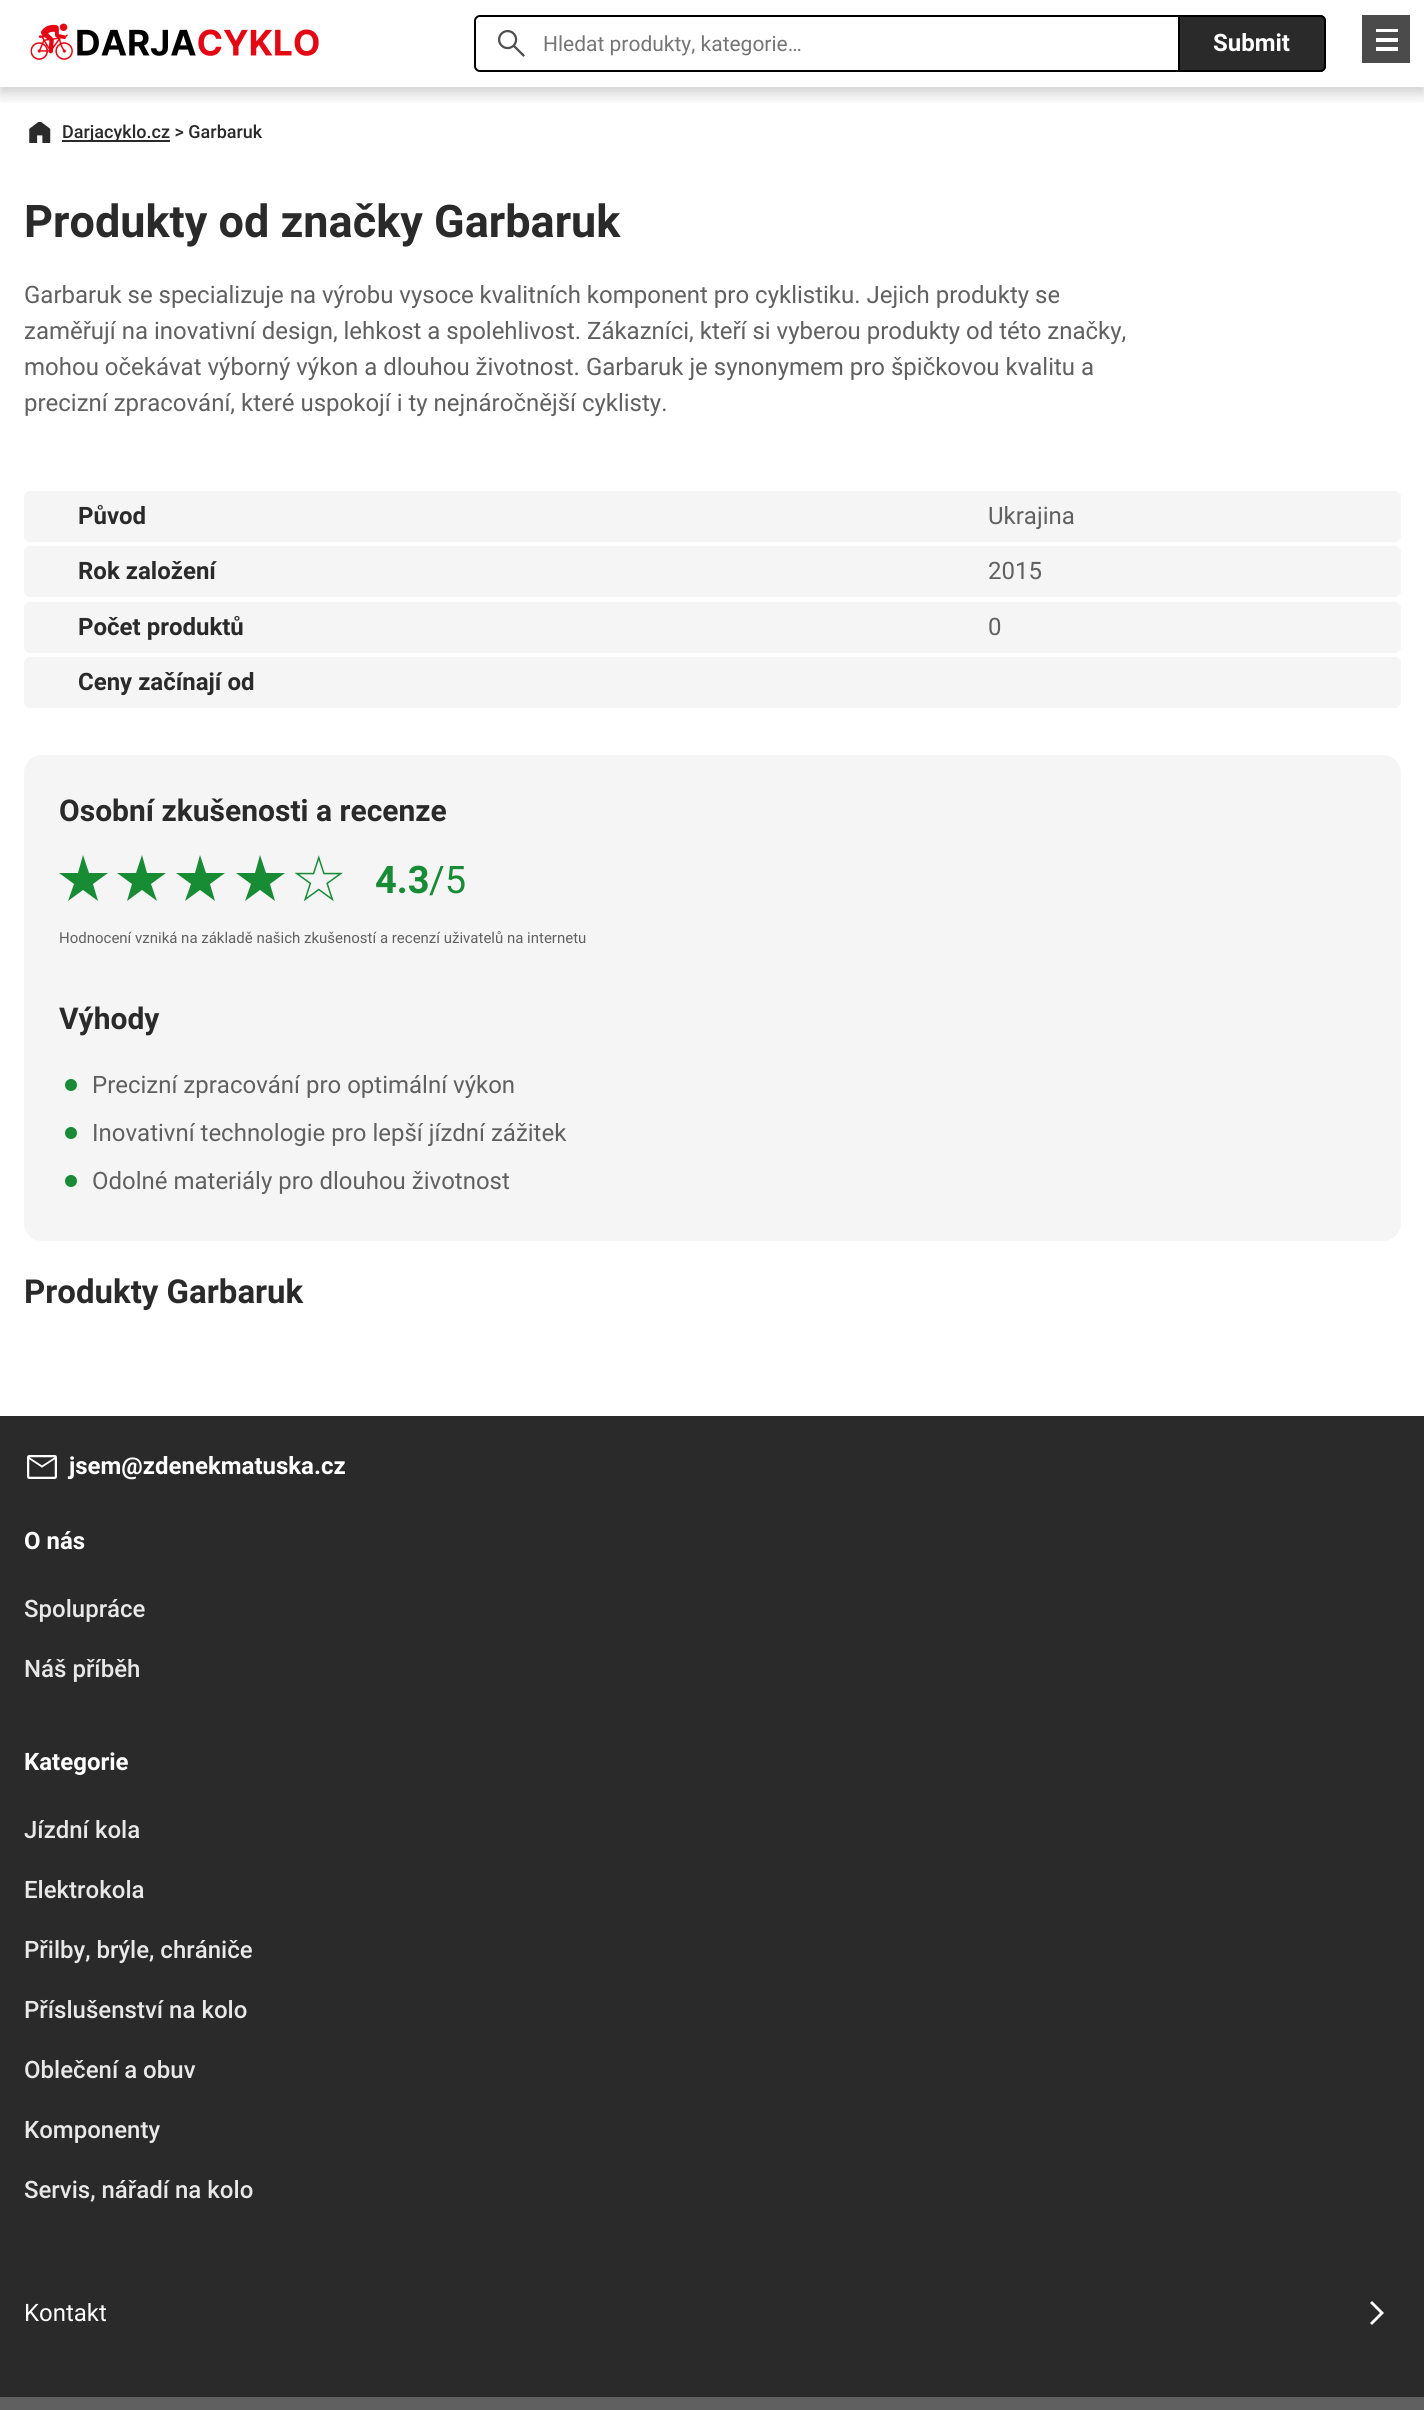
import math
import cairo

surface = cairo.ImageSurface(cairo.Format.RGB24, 1424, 2410)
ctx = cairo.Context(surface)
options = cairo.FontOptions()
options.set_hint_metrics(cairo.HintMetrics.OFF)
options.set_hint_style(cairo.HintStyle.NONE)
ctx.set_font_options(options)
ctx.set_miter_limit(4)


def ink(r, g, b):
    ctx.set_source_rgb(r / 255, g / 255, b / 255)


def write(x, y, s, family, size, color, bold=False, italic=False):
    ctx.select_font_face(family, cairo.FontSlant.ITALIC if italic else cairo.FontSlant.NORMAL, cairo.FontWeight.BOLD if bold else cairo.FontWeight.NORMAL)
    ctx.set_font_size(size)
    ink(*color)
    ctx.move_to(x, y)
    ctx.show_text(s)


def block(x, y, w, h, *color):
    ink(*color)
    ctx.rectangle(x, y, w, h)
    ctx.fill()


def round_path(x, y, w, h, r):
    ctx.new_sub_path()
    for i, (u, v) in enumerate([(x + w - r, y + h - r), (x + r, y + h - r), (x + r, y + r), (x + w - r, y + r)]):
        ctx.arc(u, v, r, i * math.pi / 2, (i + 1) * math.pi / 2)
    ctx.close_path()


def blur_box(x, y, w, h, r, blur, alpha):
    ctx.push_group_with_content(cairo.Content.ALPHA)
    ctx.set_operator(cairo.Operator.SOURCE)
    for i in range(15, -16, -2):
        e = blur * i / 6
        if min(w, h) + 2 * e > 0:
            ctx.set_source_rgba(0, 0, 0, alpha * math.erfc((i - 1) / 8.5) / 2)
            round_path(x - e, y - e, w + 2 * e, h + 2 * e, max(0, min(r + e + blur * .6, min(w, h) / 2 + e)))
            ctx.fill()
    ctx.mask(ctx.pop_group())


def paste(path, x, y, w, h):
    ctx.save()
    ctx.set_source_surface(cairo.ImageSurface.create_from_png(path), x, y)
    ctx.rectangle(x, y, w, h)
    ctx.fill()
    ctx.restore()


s1 = dict(family="Roboto", size=21, color=(117, 117, 117))
s2 = dict(family="Roboto", size=24, color=(255, 255, 255), bold=True)
s3 = dict(family="Roboto Medium", size=18, color=(42, 42, 42))
s4 = dict(family="Roboto", size=45, color=(42, 42, 42), bold=True)
s5 = dict(family="Roboto", size=24, color=(96, 96, 96))
s6 = dict(family="Roboto", size=24, color=(42, 42, 42), bold=True)
s7 = dict(family="Roboto", size=30, color=(42, 42, 42), bold=True)
s8 = dict(family="Roboto", size=38, color=(24, 139, 53), bold=True)
s9 = dict(family="Roboto", size=38, color=(24, 139, 53))
s10 = dict(family="Roboto", size=15, color=(96, 96, 96))
s11 = dict(family="Roboto", size=33, color=(42, 42, 42), bold=True)
s12 = dict(family="Roboto Medium", size=24, color=(232, 232, 232))
s13 = dict(family="Roboto", size=24, color=(255, 255, 255))

ink(255, 255, 255)
ctx.paint()
ctx.save()
ctx.rectangle(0, 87, 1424, 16)
ctx.clip()
ink(0, 0, 0)
blur_box(0, 6, 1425, 87, 0, 7.5, 0.2)
ctx.restore()
paste("pic1.png", 30, 23, 289, 37)
paste("pic2.png", 498, 30, 27, 27)
round_path(475, 16, 850, 55, 5)
ink(0, 0, 0)
ctx.stroke()
write(543, 51, "Hledat produkty, kategorie…", **s1)
ink(42, 42, 42)
ctx.new_path()
ctx.move_to(1179, 16)
ctx.line_to(1320, 16)
ctx.curve_to(1323, 16, 1325, 18, 1325, 21)
ctx.line_to(1325, 66)
ctx.curve_to(1325, 69, 1323, 71, 1320, 71)
ctx.line_to(1179, 71)
ctx.close_path()
ctx.fill_preserve()
ink(0, 0, 0)
ctx.stroke()
write(1213, 51, "Submit", **s2)
block(1362, 15, 48, 48, 75, 75, 75)
block(1376, 29, 22, 3, 255, 255, 255)
block(1376, 47, 22, 4, 255, 255, 255)
block(1376, 38, 22, 4, 255, 255, 255)
paste("pic3.png", 29, 122, 22, 21)
block(62, 140, 108, 2, 42, 42, 42)
write(62, 138, "Darjacyklo.cz > Garbaruk", **s3)
write(24, 237, "Produkty od značky Garbaruk", **s4)
write(24, 303, "Garbaruk se specializuje na výrobu vysoce kvalitních komponent pro cyklistiku. Jejich produkty se", **s5)
write(24, 339, "zaměřují na inovativní design, lehkost a spolehlivost. Zákazníci, kteří si vyberou produkty od této značky,", **s5)
write(24, 375, "mohou očekávat výborný výkon a dlouhou životnost. Garbaruk je synonymem pro špičkovou kvalitu a", **s5)
write(24, 411, "precizní zpracování, které uspokojí i ty nejnáročnější cyklisty.", **s5)
ink(245, 245, 245)
round_path(24, 491, 1377, 51, 6)
ctx.fill()
write(78, 524, "Původ", **s6)
write(988, 524, "Ukrajina", **s5)
ink(245, 245, 245)
round_path(24, 546, 1377, 51, 6)
ctx.fill()
write(78, 579, "Rok založení", **s6)
write(988, 579, "2015", **s5)
ink(245, 245, 245)
round_path(24, 602, 1377, 51, 6)
ctx.fill()
write(78, 635, "Počet produktů", **s6)
write(988, 635, "0", **s5)
ink(245, 245, 245)
round_path(24, 657, 1377, 51, 6)
ctx.fill()
write(78, 690, "Ceny začínají od", **s6)
ink(245, 245, 245)
round_path(24, 755, 1377, 486, 18)
ctx.fill()
write(59, 821, "Osobní zkušenosti a recenze", **s7)
ink(24, 139, 53)
ctx.new_path()
ctx.move_to(93, 884)
ctx.line_to(108, 873)
ctx.line_to(89, 873)
ctx.line_to(83, 855)
ctx.line_to(78, 873)
ctx.line_to(59, 873)
ctx.line_to(74, 884)
ctx.line_to(68, 901)
ctx.line_to(83, 890)
ctx.line_to(98, 901)
ctx.close_path()
ctx.fill()
ctx.new_path()
ctx.move_to(151, 884)
ctx.line_to(166, 873)
ctx.line_to(147, 873)
ctx.line_to(142, 855)
ctx.line_to(136, 873)
ctx.line_to(117, 873)
ctx.line_to(132, 884)
ctx.line_to(127, 901)
ctx.line_to(142, 890)
ctx.line_to(157, 901)
ctx.close_path()
ctx.fill()
ctx.new_path()
ctx.move_to(210, 884)
ctx.line_to(225, 873)
ctx.line_to(206, 873)
ctx.line_to(200, 855)
ctx.line_to(195, 873)
ctx.line_to(176, 873)
ctx.line_to(191, 884)
ctx.line_to(185, 901)
ctx.line_to(200, 890)
ctx.line_to(215, 901)
ctx.close_path()
ctx.fill()
ctx.new_path()
ctx.move_to(270, 884)
ctx.line_to(285, 873)
ctx.line_to(266, 873)
ctx.line_to(260, 855)
ctx.line_to(255, 873)
ctx.line_to(236, 873)
ctx.line_to(251, 884)
ctx.line_to(245, 901)
ctx.line_to(260, 890)
ctx.line_to(275, 901)
ctx.close_path()
ctx.fill()
paste("pic4.png", 294, 855, 49, 47)
write(375, 893, "4.3", **s8)
write(429, 893, "/5", **s9)
write(59, 943, "Hodnocení vzniká na základě našich zkušeností a recenzí uživatelů na internetu", **s10)
write(59, 1029, "Výhody", **s7)
ink(24, 139, 53)
ctx.new_path()
ctx.arc(71, 1085, 6, 0, 2 * math.pi)
ctx.fill()
write(92, 1093, "Precizní zpracování pro optimální výkon", **s5)
ink(24, 139, 53)
ctx.new_path()
ctx.arc(71, 1133, 6, 0, 2 * math.pi)
ctx.fill()
write(92, 1141, "Inovativní technologie pro lepší jízdní zážitek", **s5)
ink(24, 139, 53)
ctx.new_path()
ctx.arc(71, 1181, 6, 0, 2 * math.pi)
ctx.fill()
write(92, 1189, "Odolné materiály pro dlouhou životnost", **s5)
write(24, 1303, "Produkty Garbaruk", **s11)
block(0, 1416, 1424, 981, 42, 42, 42)
paste("pic5.png", 27, 1455, 30, 24)
write(69, 1474, "jsem@zdenekmatuska.cz", **s2)
write(24, 1549, "O nás", **s2)
write(24, 1617, "Spolupráce", **s12)
write(24, 1677, "Náš příběh", **s12)
write(24, 1770, "Kategorie", **s2)
write(24, 1838, "Jízdní kola", **s12)
write(24, 1898, "Elektrokola", **s12)
write(24, 1958, "Přilby, brýle, chrániče", **s12)
write(24, 2018, "Příslušenství na kolo", **s12)
write(24, 2078, "Oblečení a obuv", **s12)
write(24, 2138, "Komponenty", **s12)
write(24, 2198, "Servis, nářadí na kolo", **s12)
ink(255, 255, 255)
ctx.new_path()
ctx.move_to(1372, 2325)
ctx.line_to(1370, 2323)
ctx.line_to(1380, 2313)
ctx.line_to(1370, 2303)
ctx.line_to(1372, 2301)
ctx.line_to(1384, 2313)
ctx.close_path()
ctx.fill()
write(24, 2321, "Kontakt", **s13)
block(0, 2397, 1424, 13, 96, 96, 96)
surface.write_to_png("screenshot.png")
